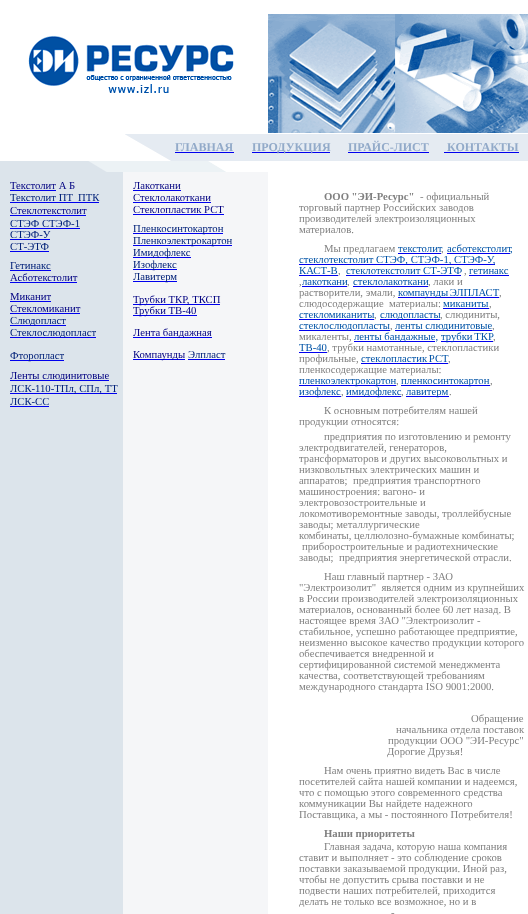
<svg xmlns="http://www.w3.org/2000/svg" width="528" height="914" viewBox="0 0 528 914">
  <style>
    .t1 { font: bold 12px Liberation Serif; fill: #92aac9; }
    .t2 { font: 10.7px Liberation Serif; fill: #000080; }
    .t3 { font: 10.7px Liberation Serif; fill: #002078; }
    .t4 { font: bold 10.7px Liberation Serif; fill: #808080; }
    .t5 { font: 10.7px Liberation Serif; fill: #808080; }
    .t6 { font: 10.7px Liberation Serif; fill: #0053a6; }
  </style>
  <rect width="100%" height="100%" fill="#fff"/>
  <image x="28" y="35" width="206" height="58" href="images/1.png"/>
  <image x="268" y="14" width="260" height="119" href="images/2.png"/>
  <image x="4" y="134" width="167" height="27" href="images/3.png"/>
  <rect x="171" y="134" width="357" height="27" fill="#e5ebf2"/>
  <text x="175" y="151" class="t1">ГЛАВНАЯ</text>
  <rect x="175" y="152" width="59" height="1" fill="#00e"/>
  <rect x="252" y="152" width="78" height="1" fill="#00e"/>
  <text x="252" y="151" class="t1">ПРОДУКЦИЯ</text>
  <text x="348" y="151" class="t1">ПРАЙС-ЛИСТ</text>
  <rect x="348" y="152" width="81" height="1" fill="#00e"/>
  <text x="447" y="151" class="t1">КОНТАКТЫ</text>
  <rect x="444" y="152" width="75" height="1" fill="#00e"/>
  <rect x="123" y="172" width="145" height="742" fill="#f5f6f8"/>
  <image x="0" y="161" width="268" height="11" href="images/4.png"/>
  <rect x="0" y="172" width="123" height="742" fill="#dce4eb"/>
  <text x="10" y="189" class="t2">Текстолит А Б</text>
  <rect x="10" y="190" width="46" height="1" fill="#00e"/>
  <text x="10" y="201" class="t3">Текстолит ПТ</text>
  <rect x="10" y="202" width="89" height="1" fill="#00e"/>
  <text x="78" y="201" class="t3">ПТК</text>
  <text x="10" y="214" class="t2">Стеклотекстолит</text>
  <rect x="10" y="215" width="76" height="1" fill="#00e"/>
  <text x="10" y="227" class="t3">СТЭФ СТЭФ-1</text>
  <rect x="10" y="228" width="70" height="1" fill="#00e"/>
  <text x="10" y="238" class="t3">СТЭФ-У</text>
  <rect x="10" y="239" width="40" height="1" fill="#00e"/>
  <text x="10" y="250" class="t3">СТ-ЭТФ</text>
  <rect x="10" y="251" width="39" height="1" fill="#00e"/>
  <text x="10" y="269" class="t3">Гетинакс</text>
  <rect x="10" y="270" width="41" height="1" fill="#00e"/>
  <text x="10" y="281" class="t2">Асботекстолит</text>
  <rect x="10" y="282" width="67" height="1" fill="#00e"/>
  <text x="10" y="300" class="t2">Миканит</text>
  <rect x="10" y="301" width="41" height="1" fill="#00e"/>
  <text x="10" y="312" class="t2">Стекломиканит</text>
  <rect x="10" y="313" width="70" height="1" fill="#00e"/>
  <rect x="10" y="325" width="56" height="1" fill="#00e"/>
  <text x="10" y="324" class="t3">Слюдопласт</text>
  <rect x="10" y="337" width="86" height="1" fill="#00e"/>
  <text x="10" y="336" class="t3">Стеклослюдопласт</text>
  <rect x="10" y="360" width="54" height="1" fill="#00e"/>
  <text x="10" y="359" class="t3">Фторопласт</text>
  <rect x="10" y="380" width="99" height="1" fill="#00e"/>
  <text x="10" y="379" class="t2">Ленты слюдинитовые</text>
  <rect x="10" y="393" width="107" height="1" fill="#00e"/>
  <text x="10" y="392" class="t3">ЛСК-110-ТПл, СПл, ТТ</text>
  <text x="10" y="405" class="t3">ЛСК-СС</text>
  <rect x="10" y="406" width="39" height="1" fill="#00e"/>
  <text x="133" y="189" class="t2">Лакоткани</text>
  <rect x="133" y="190" width="48" height="1" fill="#00e"/>
  <text x="133" y="201" class="t2">Стеклолакоткани</text>
  <rect x="133" y="202" width="78" height="1" fill="#00e"/>
  <text x="133" y="213" class="t2">Стеклопластик РСТ</text>
  <rect x="133" y="214" width="91" height="1" fill="#00e"/>
  <rect x="133" y="233" width="90" height="1" fill="#00e"/>
  <text x="133" y="232" class="t3">Пленкосинтокартон</text>
  <rect x="133" y="245" width="99" height="1" fill="#00e"/>
  <text x="133" y="244" class="t3">Пленкоэлектрокартон</text>
  <rect x="133" y="257" width="58" height="1" fill="#00e"/>
  <text x="133" y="256" class="t3">Имидофлекс</text>
  <rect x="133" y="269" width="44" height="1" fill="#00e"/>
  <text x="133" y="268" class="t3">Изофлекс</text>
  <rect x="133" y="281" width="44" height="1" fill="#00e"/>
  <text x="133" y="280" class="t3">Лавитерм</text>
  <rect x="133" y="304" width="87" height="1" fill="#00e"/>
  <text x="133" y="303" class="t2">Трубки ТКР, ТКСП</text>
  <rect x="133" y="315" width="64" height="1" fill="#00e"/>
  <text x="133" y="314" class="t2">Трубки ТВ-40</text>
  <rect x="133" y="337" width="79" height="1" fill="#00e"/>
  <text x="133" y="336" class="t2">Лента бандажная</text>
  <rect x="133" y="359" width="52" height="1" fill="#00e"/>
  <text x="133" y="358" class="t2">Компаунды</text>
  <rect x="188" y="359" width="37" height="1" fill="#00e"/>
  <text x="188" y="358" class="t3">Элпласт</text>
  <text x="324" y="200" class="t4">ООО "ЭИ-Ресурс"</text>
  <text x="420" y="200" class="t5">- официальный</text>
  <text x="299" y="211" class="t5">торговый партнер Российских заводов</text>
  <text x="299" y="222" class="t5">производителей электроизоляционных</text>
  <text x="299" y="233" class="t5">материалов.</text>
  <text x="324" y="252" class="t5">Мы предлагаем</text>
  <text x="398" y="252" class="t6">текстолит</text>
  <text x="447" y="252" class="t6">асботекстолит</text>
  <text x="441" y="252" class="t5">,</text>
  <rect x="398" y="253" width="43" height="1" fill="#00e"/>
  <text x="510" y="252" class="t6">,</text>
  <rect x="447" y="253" width="63" height="1" fill="#00e"/>
  <rect x="299" y="264" width="196" height="1" fill="#00e"/>
  <text x="299" y="263" class="t6">стеклотекстолит СТЭФ, СТЭФ-1, СТЭФ-У,</text>
  <text x="299" y="274" class="t6">КАСТ-В</text>
  <text x="338" y="274" class="t5">,</text>
  <rect x="299" y="275" width="39" height="1" fill="#00e"/>
  <text x="346" y="274" class="t6">стеклотекстолит СТ-ЭТФ</text>
  <text x="464" y="274" class="t5">,</text>
  <rect x="346" y="275" width="115" height="1" fill="#00e"/>
  <rect x="469" y="275" width="40" height="1" fill="#00e"/>
  <text x="469" y="274" class="t6">гетинакс</text>
  <text x="299" y="285" class="t5">,</text>
  <rect x="302" y="286" width="45" height="1" fill="#00e"/>
  <text x="302" y="285" class="t6">лакоткани</text>
  <text x="347" y="285" class="t5">,</text>
  <rect x="353" y="286" width="75" height="1" fill="#00e"/>
  <text x="353" y="285" class="t6">стеклолакоткани</text>
  <text x="428" y="285" class="t5">, лаки и</text>
  <text x="299" y="296" class="t5">растворители, эмали,</text>
  <rect x="398" y="297" width="101" height="1" fill="#00e"/>
  <text x="398" y="296" word-spacing="-1" class="t6">компаунды ЭЛПЛАСТ</text>
  <text x="499" y="296" class="t5">,</text>
  <text x="299" y="307" class="t5" xml:space="preserve">слюдосодержащие  материалы:</text>
  <text x="443" y="307" class="t6">миканиты</text>
  <text x="489" y="307" class="t5">,</text>
  <rect x="443" y="308" width="46" height="1" fill="#00e"/>
  <text x="299" y="318" class="t6">стекломиканиты</text>
  <text x="374" y="318" class="t5">,</text>
  <rect x="299" y="319" width="75" height="1" fill="#00e"/>
  <rect x="380" y="319" width="60" height="1" fill="#00e"/>
  <text x="380" y="318" class="t6">слюдопласты</text>
  <text x="440" y="318" class="t5">, слюдиниты,</text>
  <rect x="299" y="330" width="91" height="1" fill="#00e"/>
  <text x="299" y="329" class="t6">стеклослюдопласты</text>
  <text x="390" y="329" class="t5">,</text>
  <rect x="395" y="330" width="97" height="1" fill="#00e"/>
  <text x="395" y="329" class="t6">ленты слюдинитовые</text>
  <text x="492" y="329" class="t5">,</text>
  <text x="299" y="340" class="t5">микаленты,</text>
  <rect x="354" y="341" width="81" height="1" fill="#00e"/>
  <text x="354" y="340" class="t6">ленты бандажные,</text>
  <rect x="441" y="341" width="52" height="1" fill="#00e"/>
  <text x="441" y="340" word-spacing="-1" class="t6">трубки ТКР</text>
  <text x="493" y="340" class="t5">,</text>
  <text x="299" y="351" class="t6">ТВ-40</text>
  <text x="327" y="351" class="t5">, трубки намотанные, стеклопластики</text>
  <rect x="299" y="352" width="28" height="1" fill="#00e"/>
  <text x="299" y="362" class="t5">профильные,</text>
  <text x="361" y="362" word-spacing="-1" class="t6">стеклопластик РСТ</text>
  <text x="448" y="362" class="t5">,</text>
  <rect x="361" y="363" width="87" height="1" fill="#00e"/>
  <text x="299" y="373" class="t5">пленкосодержащие материалы:</text>
  <rect x="299" y="385" width="97" height="1" fill="#00e"/>
  <text x="299" y="384" class="t6">пленкоэлектрокартон</text>
  <text x="396" y="384" class="t5">,</text>
  <rect x="401" y="385" width="89" height="1" fill="#00e"/>
  <text x="401" y="384" class="t6">пленкосинтокартон</text>
  <text x="490" y="384" class="t5">,</text>
  <rect x="299" y="396" width="42" height="1" fill="#00e"/>
  <text x="299" y="395" class="t6">изофлекс</text>
  <text x="341" y="395" class="t5">,</text>
  <rect x="346" y="396" width="55" height="1" fill="#00e"/>
  <text x="346" y="395" class="t6">имидофлекс</text>
  <text x="401" y="395" class="t5">,</text>
  <rect x="406" y="396" width="43" height="1" fill="#00e"/>
  <text x="406" y="395" class="t6">лавитерм</text>
  <text x="449" y="395" class="t5">.</text>
  <text x="324" y="414" class="t5">К основным потребителям нашей</text>
  <text x="299" y="425" class="t5">продукции относятся:</text>
  <text x="324" y="440" class="t5">предприятия по изготовлению и ремонту</text>
  <text x="299" y="451" class="t5">электродвигателей, генераторов,</text>
  <text x="299" y="462" class="t5">трансформаторов и других высоковольтных и</text>
  <text x="299" y="473" class="t5">низковольтных электрических машин и</text>
  <text x="299" y="484" class="t5">аппаратов;</text>
  <text x="353" y="484" class="t5">предприятия транспортного</text>
  <text x="299" y="495" class="t5">машиностроения: вагоно- и</text>
  <text x="299" y="506" class="t5">электровозостроительные и</text>
  <text x="299" y="517" class="t5">локомотиворемонтные заводы, троллейбусные</text>
  <text x="299" y="528" class="t5">заводы; металлургические</text>
  <text x="299" y="539" class="t5">комбинаты, целлюлозно-бумажные комбинаты;</text>
  <text x="302" y="550" class="t5">приборостроительные и радиотехнические</text>
  <text x="299" y="561" class="t5">заводы;</text>
  <text x="339" y="561" class="t5">предприятия энергетической отрасли.</text>
  <text x="324" y="580" class="t5">Наш главный партнер - ЗАО</text>
  <text x="299" y="591" class="t5" xml:space="preserve">"Электроизолит"  является одним из крупнейших</text>
  <text x="299" y="602" class="t5">в России производителей электроизоляционных</text>
  <text x="299" y="613" class="t5">материалов, основанный более 60 лет назад. В</text>
  <text x="299" y="624" class="t5">настоящее время ЗАО "Электроизолит -</text>
  <text x="299" y="635" class="t5">стабильное, успешно работающее предприятие,</text>
  <text x="299" y="646" class="t5">неизменно высокое качество продукции которого</text>
  <text x="299" y="657" class="t5">обеспечивается внедренной и</text>
  <text x="299" y="668" class="t5">сертифицированной системой менеджмента</text>
  <text x="299" y="679" class="t5">качества, соответствующей требованиям</text>
  <text x="299" y="690" class="t5">международного стандарта ISO 9001:2000.</text>
  <text x="471" y="722" class="t5">Обращение</text>
  <text x="396" y="733" class="t5">начальника отдела поставок</text>
  <text x="388" y="744" class="t5">продукции ООО "ЭИ-Ресурс"</text>
  <text x="387" y="755" class="t5">Дорогие Друзья!</text>
  <text x="324" y="774" class="t5">Нам очень приятно видеть Вас в числе</text>
  <text x="299" y="785" class="t5">посетителей сайта нашей компании и надеемся,</text>
  <text x="299" y="796" class="t5">что с помощью этого современного средства</text>
  <text x="299" y="807" class="t5">коммуникации Вы найдете надежного</text>
  <text x="299" y="818" class="t5">Поставщика, а мы - постоянного Потребителя!</text>
  <text x="324" y="837" class="t4">Наши приоритеты</text>
  <text x="324" y="850" class="t5">Главная задача, которую наша компания</text>
  <text x="299" y="861" class="t5">ставит и выполняет - это соблюдение сроков</text>
  <text x="299" y="872" class="t5">поставки заказываемой продукции. Иной раз,</text>
  <text x="299" y="883" class="t5">чтобы не допустить срыва поставки и не</text>
  <text x="299" y="894" class="t5">подвести наших потребителей, приходится</text>
  <text x="299" y="905" class="t5">делать не только все возможное, но и в</text>
  <text x="391" y="916" class="t5">-</text>
</svg>
